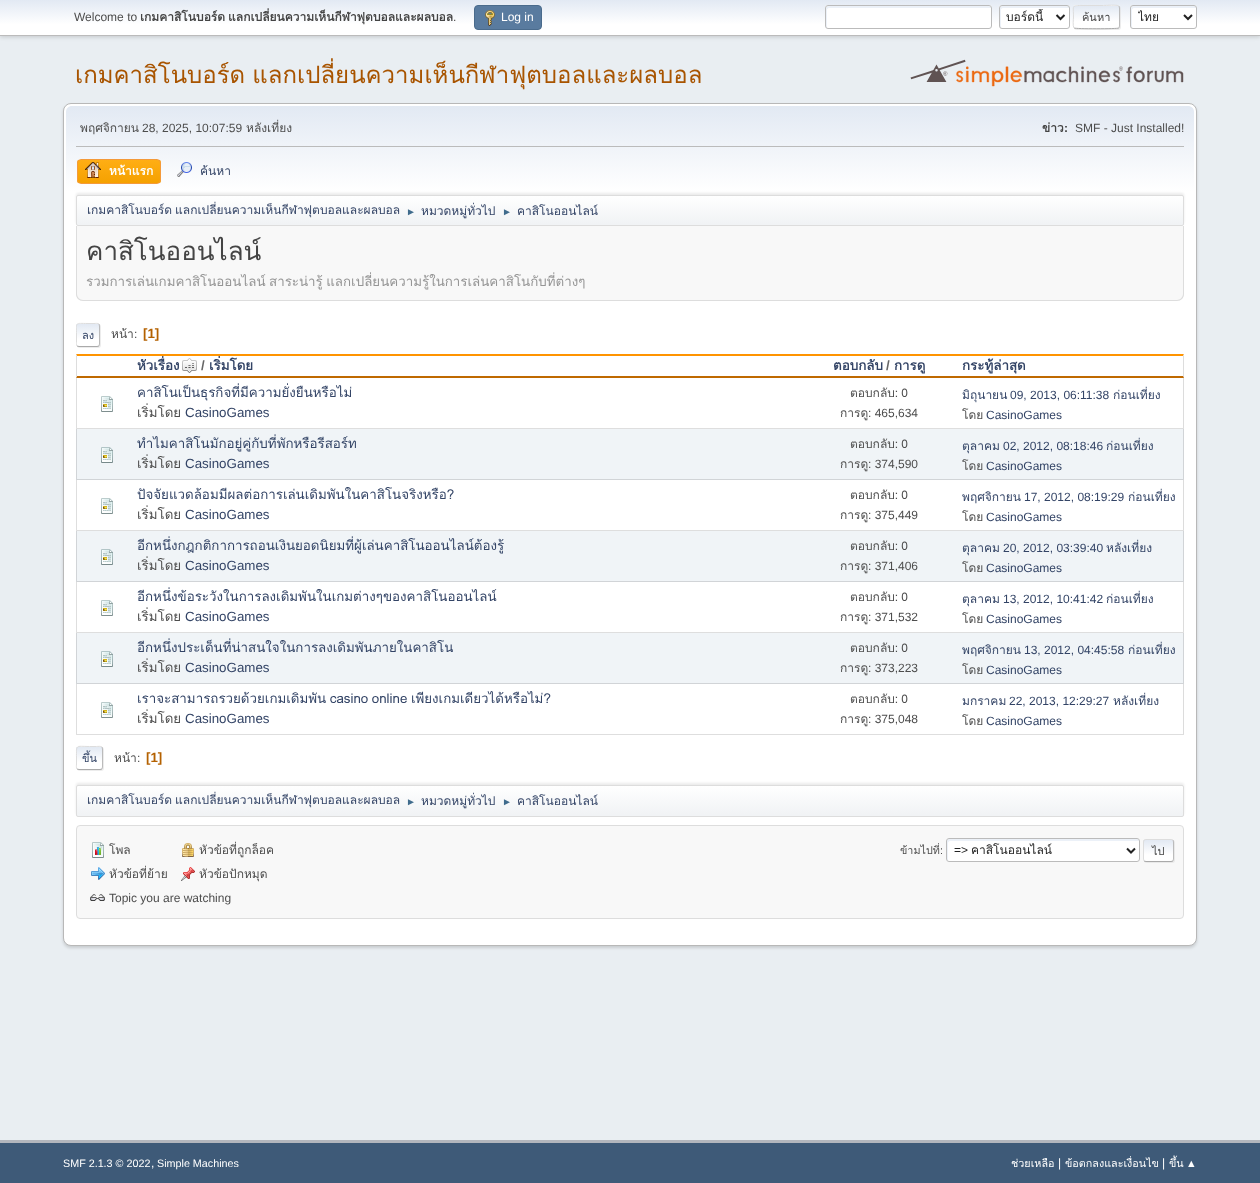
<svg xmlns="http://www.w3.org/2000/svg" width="1260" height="1183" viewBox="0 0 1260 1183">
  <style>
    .t1 { font: 12px Liberation Sans; fill: #4d4d4d; }
    .t2 { font: bold 12px Loma; fill: #444; }
    .t3 { font: 12px Liberation Sans; fill: #fff; }
    .t4 { font: 12px Loma; fill: #222; }
    .t5 { font: 11px Loma; fill: #444; }
    .t6 { font: 24px Loma; fill: #a85400; }
    .t7 { font: 12px Loma; fill: #4d4d4d; }
    .t8 { font: bold 12px Liberation Sans; fill: #444; }
    .t9 { font: bold 12px Loma; fill: #fff; }
    .t10 { font: 12px Loma; fill: #346; }
    .t11 { font: 10px Liberation Sans; fill: #3f6b8c; }
    .t12 { font: 26px Loma; fill: #444; }
    .t13 { font: 13.35px Loma; fill: #959595; }
    .t14 { font: 11px Loma; fill: #346; }
    .t15 { font: bold 13.35px Liberation Sans; fill: #b46100; }
    .t16 { font: bold 13.35px Loma; fill: #346; }
    .t17 { font: bold 13.35px Liberation Sans; fill: #666; }
    .t18 { font: 13.35px Loma; fill: #346; }
    .t19 { font: 13.35px Loma; fill: #4d4d4d; }
    .t20 { font: 13.35px Liberation Sans; fill: #346; }
    .t21 { font: 12px Liberation Sans; fill: #346; }
    .t22 { font: 10.75px Loma; fill: #4d4d4d; }
    .t23 { font: 10.75px Liberation Sans; fill: #4d4d4d; }
    .t24 { font: 12px Liberation Sans; fill: #222; }
    .t25 { font: 10.75px Liberation Sans; fill: #fff; }
    .t26 { font: 10.75px Loma; fill: #fff; }
  </style>
  <defs>
    <linearGradient id="g1" gradientUnits="userSpaceOnUse" x1="630" y1="0" x2="630" y2="35"><stop offset="0" stop-color="#e2e9f3"/><stop offset="0.7" stop-color="#fff"/></linearGradient>
    <clipPath id="clip1"><rect x="1006" y="9" width="44" height="16"/></clipPath>
    <clipPath id="clip2"><rect x="1073" y="5" width="47" height="24" rx="3"/></clipPath>
    <linearGradient id="g2" gradientUnits="userSpaceOnUse" x1="1097" y1="-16" x2="1097" y2="6"><stop offset="0" stop-color="#e2e9f3"/><stop offset="0.7" stop-color="#fff"/></linearGradient>
    <linearGradient id="g3" gradientUnits="userSpaceOnUse" x1="1097" y1="6" x2="1097" y2="28"><stop offset="0" stop-color="#e2e9f3"/><stop offset="0.7" stop-color="#fff"/></linearGradient>
    <clipPath id="clip3"><rect x="1138" y="9" width="40" height="16"/></clipPath>
    <linearGradient id="g4" gradientUnits="userSpaceOnUse" x1="630" y1="106" x2="630" y2="228"><stop offset="0" stop-color="#e2e9f3"/><stop offset="0.7" stop-color="#fff"/></linearGradient>
    <clipPath id="clip4"><rect x="77" y="159" width="84" height="25" rx="4"/></clipPath>
    <linearGradient id="g5" gradientUnits="userSpaceOnUse" x1="119" y1="160" x2="119" y2="183"><stop offset="0" stop-color="#ffae14"/><stop offset="1" stop-color="#f5a100"/></linearGradient>
    <clipPath id="clip5"><rect x="76" y="195" width="1108" height="31" rx="2"/></clipPath>
    <linearGradient id="g6" gradientUnits="userSpaceOnUse" x1="630" y1="196" x2="630" y2="225"><stop offset="0" stop-color="#fff"/><stop offset="0.95" stop-color="#f1f3f5"/></linearGradient>
    <clipPath id="clip6"><rect x="76" y="323" width="24" height="24" rx="3"/></clipPath>
    <linearGradient id="g7" gradientUnits="userSpaceOnUse" x1="88" y1="324" x2="88" y2="346"><stop offset="0" stop-color="#e2e9f3"/><stop offset="0.7" stop-color="#fff"/></linearGradient>
    <clipPath id="clip7"><rect x="76" y="316" width="1108" height="38"/></clipPath>
    <clipPath id="clip8"><rect x="137" y="356" width="659" height="20"/></clipPath>
    <clipPath id="clip9"><rect x="137" y="378" width="659" height="50"/></clipPath>
    <clipPath id="clip10"><rect x="137" y="429" width="659" height="50"/></clipPath>
    <clipPath id="clip11"><rect x="137" y="480" width="659" height="50"/></clipPath>
    <clipPath id="clip12"><rect x="137" y="531" width="659" height="50"/></clipPath>
    <clipPath id="clip13"><rect x="137" y="582" width="659" height="50"/></clipPath>
    <clipPath id="clip14"><rect x="137" y="633" width="659" height="50"/></clipPath>
    <clipPath id="clip15"><rect x="137" y="684" width="659" height="50"/></clipPath>
    <clipPath id="clip16"><rect x="76" y="746" width="27" height="24" rx="3"/></clipPath>
    <linearGradient id="g8" gradientUnits="userSpaceOnUse" x1="90" y1="747" x2="90" y2="769"><stop offset="0" stop-color="#e2e9f3"/><stop offset="0.7" stop-color="#fff"/></linearGradient>
    <clipPath id="clip17"><rect x="76" y="785" width="1108" height="32" rx="2"/></clipPath>
    <linearGradient id="g9" gradientUnits="userSpaceOnUse" x1="630" y1="786" x2="630" y2="816"><stop offset="0" stop-color="#fff"/><stop offset="0.95" stop-color="#f1f3f5"/></linearGradient>
    <clipPath id="clip18"><rect x="1143" y="839" width="31" height="23" rx="3"/></clipPath>
    <linearGradient id="g10" gradientUnits="userSpaceOnUse" x1="1159" y1="840" x2="1159" y2="861"><stop offset="0" stop-color="#e2e9f3"/><stop offset="0.7" stop-color="#fff"/></linearGradient>
  </defs>
  <rect width="100%" height="100%" fill="#e9eef2"/>
  <rect x="0" y="1" width="1260" height="36" fill="#00000029" filter="blur(2px)"/>
  <rect x="0" y="0" width="1260" height="35" fill="url(#g1)"/>
  <rect x="0" y="35" width="1260" height="1" fill="#bbb"/>
  <text x="74" y="21" class="t1">Welcome to</text>
  <text x="140" y="21" word-spacing="-1" class="t2">เกมคาสิโนบอร์ด แลกเปลี่ยนความเห็นกีฬาฟุตบอลและผลบอล</text>
  <text x="453" y="21" class="t1">.</text>
  <rect x="474.5" y="5.5" width="67" height="24" rx="3.5" fill="#597b9f" stroke="#4a6b8c"/>
  <image x="485" y="10" width="10" height="16" href="images/1.png"/>
  <text x="501" y="21" class="t3">Log in</text>
  <rect x="825" y="5" width="167" height="24" rx="3" fill="#fff"/>
  <path d="M829 8H991V7L989 6H828C827 6 826 7 826 8C826 11 825 27 827 28V10C827 9 828 8 829 8Z" fill="#ecf1f8"/>
  <rect x="825.5" y="5.5" width="166" height="23" rx="2.5" fill="none" stroke="#bbb"/>
  <rect x="999" y="5" width="71" height="24" rx="3" fill="#fff"/>
  <path d="M1003 8H1069V7C1067 4 1056 6 1056 6H1013C996 6 1000 4 1000 20C1000 22 999 26 1001 28V10C1001 9 1002 8 1003 8Z" fill="#ecf1f8"/>
  <rect x="999.5" y="5.5" width="70" height="23" rx="2.5" fill="none" stroke="#bbb"/>
  <path d="M1056.5 15L1060.5 19L1064.5 15" fill="none" stroke="#222" stroke-width="2"/>
  <g clip-path="url(#clip1)">
    <text x="1006" y="21" class="t4">บอร์ดนี้</text>
  </g>
  <rect x="1074" y="6" width="47" height="24" rx="3" fill="#dddddd91" filter="blur(0.5px)"/>
  <g clip-path="url(#clip2)">
    <rect x="1073" y="5" width="47" height="1" fill="url(#g2)"/>
    <rect x="1073" y="6" width="47" height="22" fill="url(#g3)"/>
  </g>
  <path d="M1119 6C1119 6.5 1119.5 7.5 1119.5 8V26C1119.5 26.5 1119 27.5 1119 28" fill="none" stroke="#bbb"/>
  <path d="M1119 28C1117.5 29 1075.5 29 1074 28" fill="none" stroke="#aaa"/>
  <path d="M1074 28C1072.5 26 1073.5 19 1073.5 17C1073.5 5 1071 5.5 1083 5.5H1103.5C1106 5.5 1117 4.5 1119 6" fill="none" stroke="#ddd"/>
  <text x="1082" y="21" class="t5">ค้นหา</text>
  <rect x="1130" y="5" width="67" height="24" rx="3" fill="#fff"/>
  <path d="M1134 8H1196C1196 7 1196 7 1195 6H1143C1134 6 1131 3 1131 11C1131 14 1130 26 1132 28V10C1132 9 1133 8 1134 8Z" fill="#ecf1f8"/>
  <rect x="1130.5" y="5.5" width="66" height="23" rx="2.5" fill="none" stroke="#bbb"/>
  <path d="M1184 15L1188 19L1192 15" fill="none" stroke="#222" stroke-width="2"/>
  <g clip-path="url(#clip3)">
    <text x="1138" y="21" class="t4">ไทย</text>
  </g>
  <text x="75" y="83" word-spacing="-1" class="t6">เกมคาสิโนบอร์ด แลกเปลี่ยนความเห็นกีฬาฟุตบอลและผลบอล</text>
  <image x="910" y="59" width="274" height="28" href="images/2.png"/>
  <rect x="63" y="105" width="1134" height="843" rx="8" fill="#00000024" filter="blur(1.5px)"/>
  <rect x="63.5" y="103.5" width="1133" height="842" rx="7.5" fill="#fff" stroke="#b8b8b8"/>
  <path d="M72 106H1188C1191.5 106 1194 108.5 1194 112V228H66V112C66 108.5 68.5 106 72 106Z" fill="url(#g4)"/>
  <rect x="76" y="146" width="1108" height="1" fill="#bbb"/>
  <text x="80" y="132" class="t7">พฤศจิกายน</text>
  <text x="142" y="132" class="t1">28, 2025, 10:07:59</text>
  <text x="246" y="132" class="t7">หลังเที่ยง</text>
  <text x="1042" y="132" class="t2">ข่าว</text>
  <text x="1064" y="132" class="t8">:</text>
  <text x="1075" y="132" class="t1">SMF - Just Installed!</text>
  <g clip-path="url(#clip4)">
    <rect x="77" y="160" width="84" height="23" fill="url(#g5)"/>
  </g>
  <rect x="77.5" y="159.5" width="83" height="24" rx="3.5" fill="none" stroke="#f49a3a"/>
  <image x="85" y="162" width="16" height="16" href="images/3.png"/>
  <text x="109" y="175" class="t9">หน้าแรก</text>
  <image x="177" y="162" width="15" height="15" href="images/4.png"/>
  <text x="200" y="175" class="t10">ค้นหา</text>
  <rect x="76" y="193" width="1108" height="31" rx="2" fill="#00000014" filter="blur(1px)"/>
  <g clip-path="url(#clip5)">
    <rect x="76" y="196" width="1108" height="29" fill="url(#g6)"/>
  </g>
  <rect x="76.5" y="195.5" width="1107" height="30" rx="1.5" fill="none" stroke="#ddd"/>
  <text x="87" y="214" word-spacing="-1" class="t10">เกมคาสิโนบอร์ด แลกเปลี่ยนความเห็นกีฬาฟุตบอลและผลบอล</text>
  <text x="406" y="215" class="t11">►</text>
  <text x="421" y="215" class="t10">หมวดหมู่ทั่วไป</text>
  <text x="502" y="215" class="t11">►</text>
  <text x="517" y="215" class="t10">คาสิโนออนไลน์</text>
  <path d="M76 226H1184V294C1184 298 1181 301 1177 301H83C79 301 76 298 76 294Z" fill="#f8f8f8"/>
  <path d="M76 226H1184V294C1184 298 1181 301 1177 301H83C79 301 76 298 76 294ZM77 226H1183V294C1183 297 1180 300 1177 300H83C80 300 77 297 77 294Z" fill="#ddd" fill-rule="evenodd"/>
  <text x="86" y="260" class="t12">คาสิโนออนไลน์</text>
  <text x="86" y="286" word-spacing="-1" class="t13">รวมการเล่นเกมคาสิโนออนไลน์ สาระน่ารู้ แลกเปลี่ยนความรู้ในการเล่นคาสิโนกับที่ต่างๆ</text>
  <rect x="77" y="324" width="24" height="24" rx="3" fill="#dddddd91" filter="blur(0.5px)"/>
  <g clip-path="url(#clip6)">
    <rect x="76" y="324" width="24" height="22" fill="url(#g7)"/>
  </g>
  <path d="M99 324C99 324.5 99.5 325.5 99.5 326V344C99.5 344.5 99 345.5 99 346" fill="none" stroke="#bbb"/>
  <path d="M99 346C98.5 346 97.5 346.5 97 346.5H79C78.5 346.5 77.5 346 77 346" fill="none" stroke="#aaa"/>
  <g clip-path="url(#clip7)">
    <path d="M77 346C76 344.5 76.5 342.5 76.5 341V335C76.5 321.5 74.5 323.5 88 323.5H94C95.5 323.5 97.5 323 99 324" fill="none" stroke="#ddd"/>
  </g>
  <text x="82" y="339" class="t14">ลง</text>
  <text x="111" y="338" class="t7">หน้า</text>
  <text x="134" y="338" class="t1">:</text>
  <text x="143" y="338" class="t15">[1]</text>
  <path d="M76 354H1184L1183 356H77Z" fill="#ff9400"/>
  <path d="M1184 354V378L1183 376V356Z" fill="#ddd"/>
  <path d="M1184 378H76L77 376H1183Z" fill="#bf6900"/>
  <path d="M76 378V354L77 356V376Z" fill="#ddd"/>
  <g clip-path="url(#clip8)">
    <text x="137" y="370" class="t16">หัวเรื่อง</text>
  </g>
  <image x="182" y="358" width="15" height="15" href="images/5.png"/>
  <text x="201" y="370" class="t17">/</text>
  <text x="209" y="370" class="t16">เริ่มโดย</text>
  <text x="833" y="370" class="t16">ตอบกลับ</text>
  <text x="886" y="370" class="t17">/</text>
  <text x="894" y="370" class="t16">การดู</text>
  <text x="962" y="370" class="t16">กระทู้ล่าสุด</text>
  <path d="M1184 378V429L1183 428V378Z" fill="#dcdcdc"/>
  <path d="M1184 429H76L77 428H1183Z" fill="#00000021"/>
  <path d="M76 429V378H77V428Z" fill="#00000021"/>
  <image x="101" y="396" width="12" height="16" href="images/6.png"/>
  <text x="137" y="397" class="t18">คาสิโนเป็นธุรกิจที่มีความยั่งยืนหรือไม่</text>
  <g clip-path="url(#clip9)">
    <text x="137" y="417" class="t19">เริ่มโดย</text>
  </g>
  <text x="185" y="417" class="t20">CasinoGames</text>
  <text x="850" y="397" word-spacing="-1" class="t7">ตอบกลับ: 0</text>
  <text x="840" y="417" class="t7">การดู</text>
  <text x="868" y="417" class="t1">: 465,634</text>
  <text x="962" y="399" class="t10">มิถุนายน</text>
  <text x="1010" y="399" class="t21">09, 2013, 06:11:38</text>
  <text x="1113" y="399" class="t10">ก่อนเที่ยง</text>
  <text x="962" y="419" class="t7">โดย</text>
  <text x="986" y="419" class="t21">CasinoGames</text>
  <rect x="76" y="429" width="1108" height="51" fill="#f0f4f7"/>
  <path d="M1184 429V480L1183 479V429Z" fill="#d1d4d7"/>
  <path d="M1184 480H76L77 479H1183Z" fill="#00000021"/>
  <path d="M76 480V429H77V479Z" fill="#00000021"/>
  <image x="101" y="447" width="12" height="16" href="images/7.png"/>
  <g clip-path="url(#clip10)">
    <text x="137" y="448" class="t18">ทำไมคาสิโนมักอยู่คู่กับที่พักหรือรีสอร์ท</text>
    <text x="137" y="468" class="t19">เริ่มโดย</text>
  </g>
  <text x="185" y="468" class="t20">CasinoGames</text>
  <text x="850" y="448" word-spacing="-1" class="t7">ตอบกลับ: 0</text>
  <text x="840" y="468" class="t7">การดู</text>
  <text x="868" y="468" class="t1">: 374,590</text>
  <text x="962" y="450" class="t10">ตุลาคม</text>
  <text x="1003" y="450" class="t21">02, 2012, 08:18:46</text>
  <text x="1106" y="450" class="t10">ก่อนเที่ยง</text>
  <text x="962" y="470" class="t7">โดย</text>
  <text x="986" y="470" class="t21">CasinoGames</text>
  <path d="M1184 480V531L1183 530V480Z" fill="#dcdcdc"/>
  <path d="M1184 531H76L77 530H1183Z" fill="#00000021"/>
  <path d="M76 531V480H77V530Z" fill="#00000021"/>
  <image x="101" y="498" width="12" height="16" href="images/6.png"/>
  <g clip-path="url(#clip11)">
    <text x="137" y="499" class="t18">ปัจจัยแวดล้อมมีผลต่อการเล่นเดิมพันในคาสิโนจริงหรือ?</text>
    <text x="137" y="519" class="t19">เริ่มโดย</text>
  </g>
  <text x="185" y="519" class="t20">CasinoGames</text>
  <text x="850" y="499" word-spacing="-1" class="t7">ตอบกลับ: 0</text>
  <text x="840" y="519" class="t7">การดู</text>
  <text x="868" y="519" class="t1">: 375,449</text>
  <text x="962" y="501" class="t10">พฤศจิกายน</text>
  <text x="1024" y="501" class="t21">17, 2012, 08:19:29</text>
  <text x="1128" y="501" class="t10">ก่อนเที่ยง</text>
  <text x="962" y="521" class="t7">โดย</text>
  <text x="986" y="521" class="t21">CasinoGames</text>
  <rect x="76" y="531" width="1108" height="51" fill="#f0f4f7"/>
  <path d="M1184 531V582L1183 581V531Z" fill="#d1d4d7"/>
  <path d="M1184 582H76L77 581H1183Z" fill="#00000021"/>
  <path d="M76 582V531H77V581Z" fill="#00000021"/>
  <image x="101" y="549" width="12" height="16" href="images/7.png"/>
  <g clip-path="url(#clip12)">
    <text x="137" y="550" class="t18">อีกหนึ่งกฎกติกาการถอนเงินยอดนิยมที่ผู้เล่นคาสิโนออนไลน์ต้องรู้</text>
    <text x="137" y="570" class="t19">เริ่มโดย</text>
  </g>
  <text x="185" y="570" class="t20">CasinoGames</text>
  <text x="850" y="550" word-spacing="-1" class="t7">ตอบกลับ: 0</text>
  <text x="840" y="570" class="t7">การดู</text>
  <text x="868" y="570" class="t1">: 371,406</text>
  <text x="962" y="552" class="t10">ตุลาคม</text>
  <text x="1003" y="552" class="t21">20, 2012, 03:39:40</text>
  <text x="1106" y="552" class="t10">หลังเที่ยง</text>
  <text x="962" y="572" class="t7">โดย</text>
  <text x="986" y="572" class="t21">CasinoGames</text>
  <path d="M1184 582V633L1183 632V582Z" fill="#dcdcdc"/>
  <path d="M1184 633H76L77 632H1183Z" fill="#00000021"/>
  <path d="M76 633V582H77V632Z" fill="#00000021"/>
  <image x="101" y="600" width="12" height="16" href="images/6.png"/>
  <g clip-path="url(#clip13)">
    <text x="137" y="601" class="t18">อีกหนึ่งข้อระวังในการลงเดิมพันในเกมต่างๆของคาสิโนออนไลน์</text>
    <text x="137" y="621" class="t19">เริ่มโดย</text>
  </g>
  <text x="185" y="621" class="t20">CasinoGames</text>
  <text x="850" y="601" word-spacing="-1" class="t7">ตอบกลับ: 0</text>
  <text x="840" y="621" class="t7">การดู</text>
  <text x="868" y="621" class="t1">: 371,532</text>
  <text x="962" y="603" class="t10">ตุลาคม</text>
  <text x="1003" y="603" class="t21">13, 2012, 10:41:42</text>
  <text x="1106" y="603" class="t10">ก่อนเที่ยง</text>
  <text x="962" y="623" class="t7">โดย</text>
  <text x="986" y="623" class="t21">CasinoGames</text>
  <rect x="76" y="633" width="1108" height="51" fill="#f0f4f7"/>
  <path d="M1184 633V684L1183 683V633Z" fill="#d1d4d7"/>
  <path d="M1184 684H76L77 683H1183Z" fill="#00000021"/>
  <path d="M76 684V633H77V683Z" fill="#00000021"/>
  <image x="101" y="651" width="12" height="16" href="images/7.png"/>
  <g clip-path="url(#clip14)">
    <text x="137" y="652" class="t18">อีกหนึ่งประเด็นที่น่าสนใจในการลงเดิมพันภายในคาสิโน</text>
    <text x="137" y="672" class="t19">เริ่มโดย</text>
  </g>
  <text x="185" y="672" class="t20">CasinoGames</text>
  <text x="850" y="652" word-spacing="-1" class="t7">ตอบกลับ: 0</text>
  <text x="840" y="672" class="t7">การดู</text>
  <text x="868" y="672" class="t1">: 373,223</text>
  <text x="962" y="654" class="t10">พฤศจิกายน</text>
  <text x="1024" y="654" class="t21">13, 2012, 04:45:58</text>
  <text x="1128" y="654" class="t10">ก่อนเที่ยง</text>
  <text x="962" y="674" class="t7">โดย</text>
  <text x="986" y="674" class="t21">CasinoGames</text>
  <path d="M1184 684V735L1183 734V684Z" fill="#dcdcdc"/>
  <path d="M1184 735H76L77 734H1183Z" fill="#00000021"/>
  <path d="M76 735V684H77V734Z" fill="#00000021"/>
  <image x="101" y="702" width="12" height="16" href="images/6.png"/>
  <text x="137" y="703" word-spacing="-1" class="t18">เราจะสามารถรวยด้วยเกมเดิมพัน casino online เพียงเกมเดียวได้หรือไม่?</text>
  <g clip-path="url(#clip15)">
    <text x="137" y="723" class="t19">เริ่มโดย</text>
  </g>
  <text x="185" y="723" class="t20">CasinoGames</text>
  <text x="850" y="703" word-spacing="-1" class="t7">ตอบกลับ: 0</text>
  <text x="840" y="723" class="t7">การดู</text>
  <text x="868" y="723" class="t1">: 375,048</text>
  <text x="962" y="705" class="t10">มกราคม</text>
  <text x="1009" y="705" class="t21">22, 2013, 12:29:27</text>
  <text x="1113" y="705" class="t10">หลังเที่ยง</text>
  <text x="962" y="725" class="t7">โดย</text>
  <text x="986" y="725" class="t21">CasinoGames</text>
  <rect x="77" y="747" width="27" height="24" rx="3" fill="#dddddd91" filter="blur(0.5px)"/>
  <g clip-path="url(#clip16)">
    <rect x="76" y="747" width="27" height="22" fill="url(#g8)"/>
  </g>
  <path d="M102 747C102 747.5 102.5 748.5 102.5 749V767C102.5 767.5 102 768.5 102 769" fill="none" stroke="#bbb"/>
  <path d="M102 769C101.5 769 100.5 769.5 100 769.5H79C78.5 769.5 77.5 769 77 769" fill="none" stroke="#aaa"/>
  <path d="M77 769C76 767.5 76.5 765.5 76.5 764V758C76.5 744 75 746.5 89.5 746.5H96.5C98 746.5 100.5 746 102 747" fill="none" stroke="#ddd"/>
  <text x="82" y="762" class="t14">ขึ้น</text>
  <text x="114" y="762" class="t7">หน้า</text>
  <text x="137" y="762" class="t1">:</text>
  <text x="146" y="762" class="t15">[1]</text>
  <rect x="76" y="783" width="1108" height="32" rx="2" fill="#00000014" filter="blur(1px)"/>
  <g clip-path="url(#clip17)">
    <rect x="76" y="786" width="1108" height="30" fill="url(#g9)"/>
  </g>
  <rect x="76.5" y="785.5" width="1107" height="31" rx="1.5" fill="none" stroke="#ddd"/>
  <text x="87" y="804" word-spacing="-1" class="t10">เกมคาสิโนบอร์ด แลกเปลี่ยนความเห็นกีฬาฟุตบอลและผลบอล</text>
  <text x="406" y="805" class="t11">►</text>
  <text x="421" y="805" class="t10">หมวดหมู่ทั่วไป</text>
  <text x="502" y="805" class="t11">►</text>
  <text x="517" y="805" class="t10">คาสิโนออนไลน์</text>
  <rect x="76.5" y="825.5" width="1107" height="93" rx="3.5" fill="#f8f8f8" stroke="#ddd"/>
  <image x="182" y="843" width="12" height="14" href="images/8.png"/>
  <text x="199" y="854" class="t7">หัวข้อที่ถูกล็อค</text>
  <image x="181" y="867" width="14" height="14" href="images/9.png"/>
  <text x="199" y="878" class="t7">หัวข้อปักหมุด</text>
  <image x="90" y="894" width="15" height="7" href="images/10.png"/>
  <text x="109" y="902" class="t1">Topic you are watching</text>
  <text x="900" y="854" class="t22">ข้ามไปที่</text>
  <text x="940" y="854" class="t23">:</text>
  <rect x="946" y="838" width="194" height="24" rx="3" fill="#fff"/>
  <path d="M950 841H1139C1139 840 1138 839 1137 839H949C948 839 947 840 947 841V859C947 860 947 860 948 861V843C948 842 949 841 950 841Z" fill="#ecf1f8"/>
  <rect x="946.5" y="838.5" width="193" height="23" rx="2.5" fill="none" stroke="#bbb"/>
  <path d="M1127 848.5L1131 852.5L1135 848.5" fill="none" stroke="#222" stroke-width="2"/>
  <text x="954" y="854" class="t24">=&gt;</text>
  <text x="971" y="854" class="t4">คาสิโนออนไลน์</text>
  <rect x="1144" y="840" width="31" height="23" rx="3" fill="#dddddd91" filter="blur(0.5px)"/>
  <g clip-path="url(#clip18)">
    <rect x="1143" y="840" width="31" height="21" fill="url(#g10)"/>
  </g>
  <path d="M1173 840C1173 840.5 1173.5 841.5 1173.5 842V859C1173.5 859.5 1173 860.5 1173 861" fill="none" stroke="#bbb"/>
  <path d="M1173 861C1172.5 861 1171.5 861.5 1171 861.5H1146C1145.5 861.5 1144.5 861 1144 861" fill="none" stroke="#aaa"/>
  <path d="M1144 861C1144 860.5 1143.5 859.5 1143.5 859V842C1143.5 841.5 1144 840.5 1144 840C1144.5 840 1145.5 839.5 1146 839.5H1171C1171.5 839.5 1172.5 840 1173 840" fill="none" stroke="#ddd"/>
  <text x="1152" y="855" class="t5">ไป</text>
  <image x="92" y="842" width="12" height="16" href="images/11.png"/>
  <text x="109" y="854" class="t7">โพล</text>
  <image x="91" y="867" width="14" height="13" href="images/12.png"/>
  <text x="109" y="878" class="t7">หัวข้อที่ย้าย</text>
  <rect x="0" y="1143" width="1260" height="40" fill="#3e5a78"/>
  <rect x="0" y="1140" width="1260" height="3" fill="#b2b6bd"/>
  <text x="63" y="1167" class="t25">SMF 2.1.3 © 2022</text>
  <text x="151" y="1167" class="t3">,</text>
  <text x="157" y="1167" class="t25">Simple Machines</text>
  <text x="1011" y="1167" class="t26">ช่วยเหลือ</text>
  <text x="1058" y="1167" class="t3">|</text>
  <text x="1065" y="1167" class="t26">ข้อตกลงและเงื่อนไข</text>
  <text x="1162" y="1167" class="t3">|</text>
  <text x="1169" y="1167" class="t26">ขึ้น</text>
  <text x="1186" y="1167" class="t25">▲</text>
</svg>
